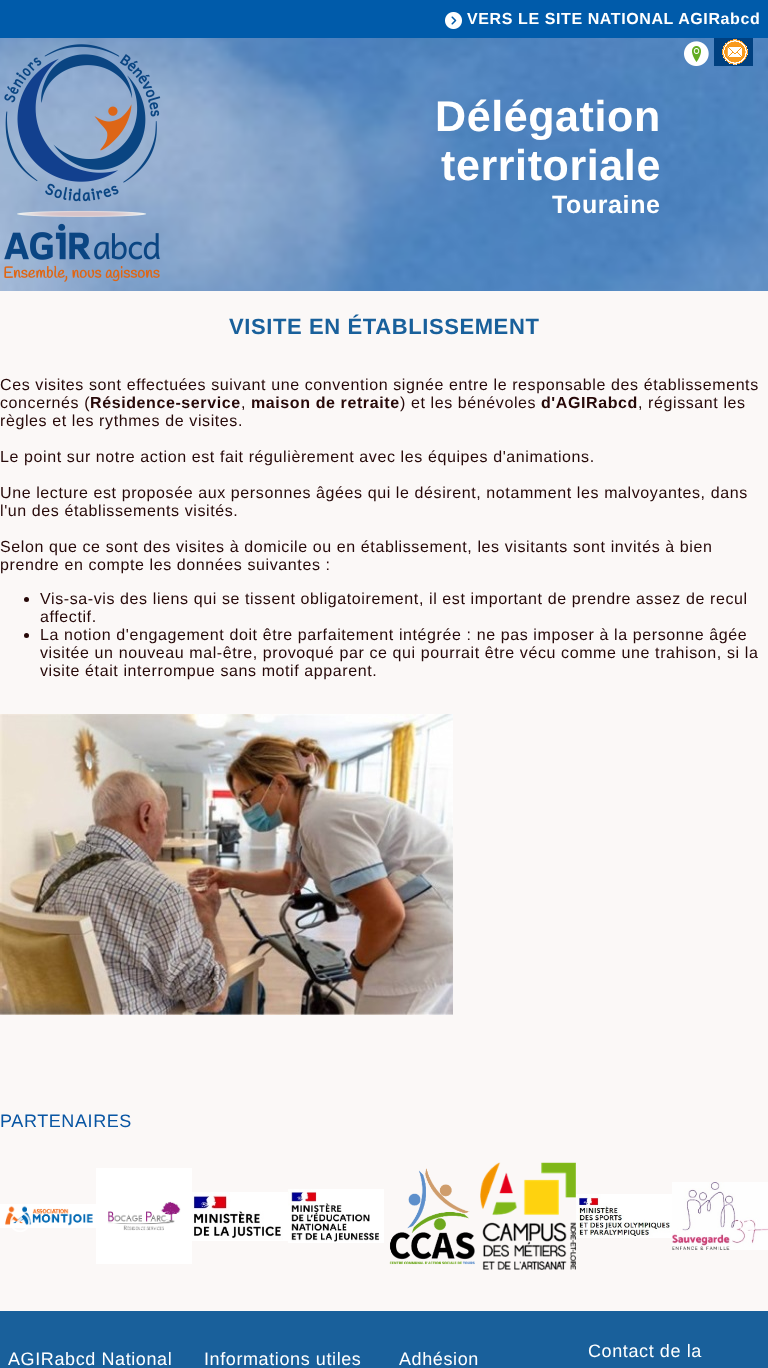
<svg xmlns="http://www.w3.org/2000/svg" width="768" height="1368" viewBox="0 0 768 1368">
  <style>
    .t1 { font: bold 16px Liberation Sans; letter-spacing: 0.6px; fill: #fff; }
    .t2 { font: bold 43px Liberation Sans; letter-spacing: 0.6px; fill: #fff; }
    .t3 { font: bold 25px Liberation Sans; letter-spacing: 0.6px; fill: #fff; }
    .t4 { font: bold 22px Liberation Sans; letter-spacing: 0.6px; fill: #19609b; }
    .t5 { font: 16px Liberation Sans; letter-spacing: 0.6px; fill: #260808; }
    .t6 { font: bold 16px Liberation Sans; letter-spacing: 0.6px; fill: #260808; }
    .t7 { font: 18px Liberation Sans; letter-spacing: 0.6px; fill: #0855a3; }
    .t8 { font: 18px Liberation Sans; letter-spacing: 0.6px; fill: #fff; }
  </style>
  <rect width="100%" height="100%" fill="#fbf8f7"/>
  <rect x="0" y="0" width="768" height="38" fill="#005baa"/>
  <image x="445" y="12" width="17" height="17" href="images/1.png"/>
  <text x="467" y="24" class="t1">VERS LE SITE NATIONAL AGIRabcd</text>
  <image x="0" y="38" width="768" height="253" href="images/2.png"/>
  <image x="4" y="44" width="157" height="238" href="images/3.png"/>
  <image x="684" y="41" width="25" height="25" href="images/4.png"/>
  <image x="714" y="38" width="39" height="28" href="images/5.png"/>
  <text x="435" y="131" class="t2">Délégation</text>
  <text x="441" y="180" class="t2">territoriale</text>
  <text x="552" y="213" class="t3">Touraine</text>
  <text x="229" y="334" class="t4">VISITE EN ÉTABLISSEMENT</text>
  <text x="0" y="390" class="t5">Ces visites sont effectuées suivant une convention signée entre le responsable des établissements</text>
  <text x="0" y="408" class="t5">concernés (</text>
  <text x="90" y="408" class="t6">Résidence-service</text>
  <text x="241" y="408" class="t5">,</text>
  <text x="251" y="408" class="t6">maison de retraite</text>
  <text x="400" y="408" class="t5">) et les bénévoles</text>
  <text x="541" y="408" class="t6">d'AGIRabcd</text>
  <text x="638" y="408" class="t5">, régissant les</text>
  <text x="0" y="426" class="t5">règles et les rythmes de visites.</text>
  <text x="0" y="462" class="t5">Le point sur notre action est fait régulièrement avec les équipes d'animations.</text>
  <text x="0" y="498" class="t5">Une lecture est proposée aux personnes âgées qui le désirent, notamment les malvoyantes, dans</text>
  <text x="0" y="516" class="t5">l'un des établissements visités.</text>
  <text x="0" y="552" class="t5">Selon que ce sont des visites à domicile ou en établissement, les visitants sont invités à bien</text>
  <text x="0" y="570" class="t5">prendre en compte les données suivantes :</text>
  <circle cx="26.5" cy="599.5" r="2.5" fill="#260808"/>
  <text x="40" y="604" class="t5">Vis-sa-vis des liens qui se tissent obligatoirement, il est important de prendre assez de recul</text>
  <text x="40" y="622" class="t5">affectif.</text>
  <circle cx="26.5" cy="635.5" r="2.5" fill="#260808"/>
  <text x="40" y="640" class="t5">La notion d'engagement doit être parfaitement intégrée : ne pas imposer à la personne âgée</text>
  <text x="40" y="658" class="t5">visitée un nouveau mal-être, provoqué par ce qui pourrait être vécu comme une trahison, si la</text>
  <text x="40" y="676" class="t5">visite était interrompue sans motif apparent.</text>
  <image x="0" y="714" width="453" height="301" href="images/6.png"/>
  <text x="0" y="1127" class="t7">PARTENAIRES</text>
  <image x="0" y="1204" width="96" height="24" href="images/7.png"/>
  <image x="96" y="1168" width="96" height="96" href="images/8.png"/>
  <image x="192" y="1192" width="96" height="49" href="images/9.png"/>
  <image x="288" y="1189" width="96" height="54" href="images/10.png"/>
  <image x="389" y="1168" width="86" height="97" href="images/11.png"/>
  <image x="480" y="1162" width="96" height="108" href="images/12.png"/>
  <image x="576" y="1194" width="96" height="44" href="images/13.png"/>
  <image x="672" y="1182" width="96" height="68" href="images/14.png"/>
  <image x="10" y="1213" width="20" height="19" href="images/15.png"/>
  <image x="738" y="1219" width="19" height="13" href="images/16.png"/>
  <rect x="0" y="1311" width="768" height="57" fill="#19609b"/>
  <text x="8" y="1365" class="t8">AGIRabcd National</text>
  <text x="204" y="1365" class="t8">Informations utiles</text>
  <text x="399" y="1365" class="t8">Adhésion</text>
  <text x="588" y="1357" class="t8">Contact de la</text>
</svg>
